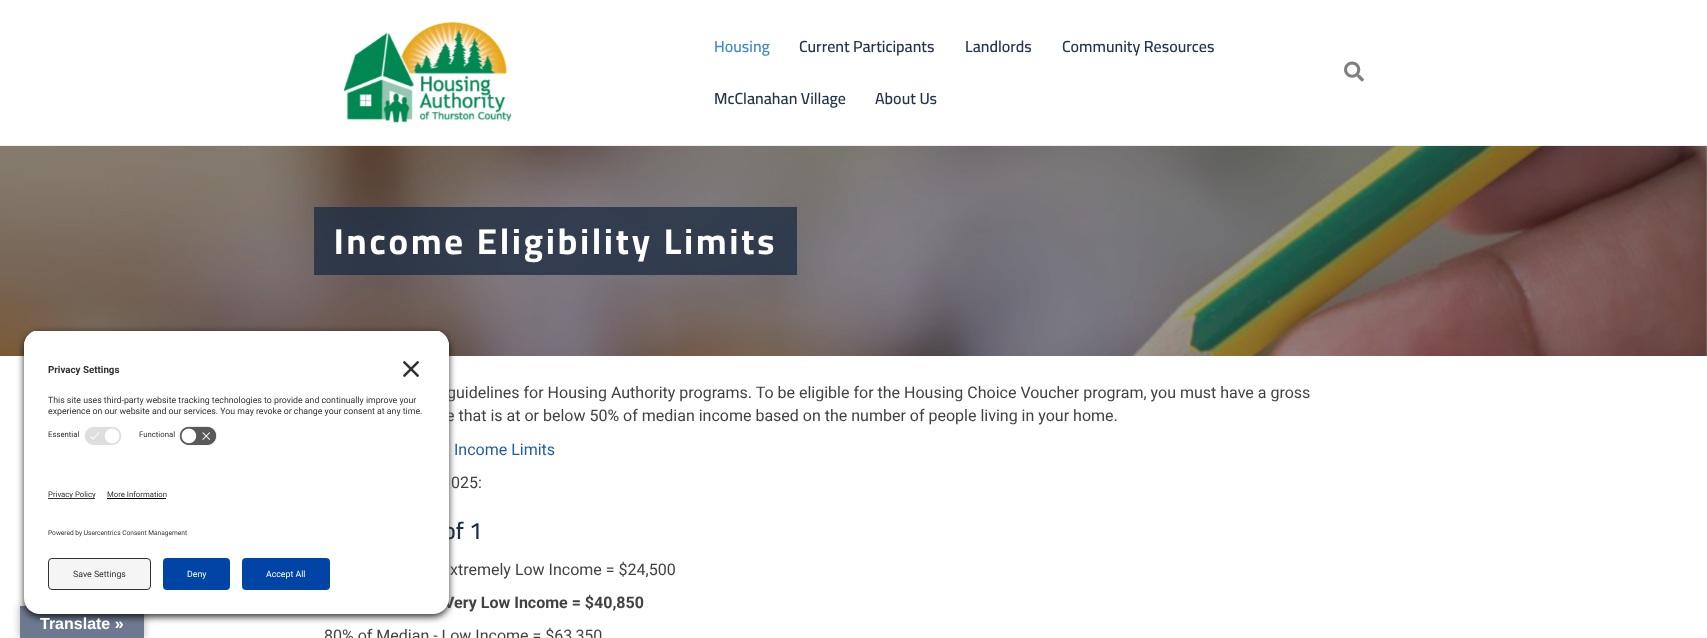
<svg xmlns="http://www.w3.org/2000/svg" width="1707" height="638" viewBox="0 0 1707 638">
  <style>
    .t1 { font: 16px Roboto; fill: #424242; }
    .t2 { font: bold 9.75px Roboto; fill: #303030; }
    .t3 { font: 8.75px Roboto; fill: #303030; }
    .t4 { font: 7.75px Roboto; fill: #303030; }
    .t5 { font: 600 24px Cairo; fill: #1f2e44; }
    .t6 { font: bold 16px Roboto; fill: #424242; }
    .t7 { font: 6.6px Roboto; fill: #303030; }
    .t8 { font: 8.75px Roboto; fill: #fff; }
    .t9 { font: 600 16px Cairo; fill: #428bca; }
    .t10 { font: 600 16px Cairo; fill: #24344f; }
    .t11 { font: bold 36px Cairo; letter-spacing: 3px; fill: #fff; }
    .t12 { font: 16px Roboto; fill: #215ca8; }
    .t13 { font: bold 16px Liberation Sans; fill: #fff; }
  </style>
  <defs>
    <clipPath id="clip1"><path d="M40 330H433C442 330 449 337 449 346V461H24V346C24 337 31 330 40 330Z"/></clipPath>
  </defs>
  <rect width="100%" height="100%" fill="#fff"/>
  <image x="0" y="146" width="1707" height="210" href="images/6.png"/>
  <rect x="20" y="606" width="124" height="32" fill="#0000004d" filter="blur(4.5px)"/>
  <rect x="20" y="606" width="124" height="32" fill="#6d7990"/>
  <rect x="24" y="333" width="425" height="284" rx="16" fill="#000000cc" filter="blur(3.5px)"/>
  <text x="447" y="398" class="t1">guidelines for Housing Authority programs. To be eligible for the Housing Choice Voucher program, you must have a gross</text>
  <text x="446" y="421" class="t1">e that is at or below 50% of median income based on the number of people living in your home.</text>
  <g clip-path="url(#clip1)">
    <rect x="24" y="331" width="425" height="130" fill="#fff"/>
    <rect x="24" y="331" width="425" height="90" fill="#fff"/>
  </g>
  <text x="48" y="373" class="t2">Privacy Settings</text>
  <image x="403" y="361" width="16" height="16" href="images/1.png"/>
  <text x="48" y="403" class="t3">This site uses third-party website tracking technologies to provide and continually improve your</text>
  <text x="48" y="414" class="t3">experience on our website and our services. You may revoke or change your consent at any time.</text>
  <text x="48" y="437" class="t4">Essential</text>
  <image x="84" y="426" width="38" height="19" href="images/2.png"/>
  <text x="139" y="437" class="t4">Functional</text>
  <image x="179" y="426" width="38" height="20" href="images/3.png"/>
  <text x="443" y="539" class="t5">of 1</text>
  <text x="444" y="608" class="t6">Very Low Income = $40,850</text>
  <path d="M24 461H449V598C449 607 442 614 433 614H40C31 614 24 607 24 598Z" fill="#fff"/>
  <rect x="48" y="498" width="47" height="1" fill="#303030"/>
  <text x="48" y="497" class="t4">Privacy Policy</text>
  <text x="107" y="497" class="t4">More Information</text>
  <rect x="107" y="498" width="59" height="1" fill="#000"/>
  <text x="48" y="535" class="t7">Powered by Usercentrics Consent Management</text>
  <rect x="48.5" y="558.5" width="102" height="31" rx="3.5" fill="#f5f5f5" stroke="#303030"/>
  <text x="73" y="577" class="t3">Save Settings</text>
  <rect x="163" y="558" width="67" height="32" rx="4" fill="#0045a5"/>
  <text x="187" y="577" class="t8">Deny</text>
  <rect x="242" y="558" width="88" height="32" rx="4" fill="#0045a5"/>
  <text x="266" y="577" class="t8">Accept All</text>
  <rect x="0" y="145" width="1707" height="1" fill="#eee"/>
  <image x="343" y="22" width="168" height="101" href="images/4.png"/>
  <text x="714" y="52" class="t9">Housing</text>
  <text x="799" y="52" class="t10">Current Participants</text>
  <text x="965" y="52" class="t10">Landlords</text>
  <text x="1062" y="52" class="t10">Community Resources</text>
  <text x="714" y="104" class="t10">McClanahan Village</text>
  <text x="875" y="104" class="t10">About Us</text>
  <image x="1344" y="61" width="20" height="21" href="images/5.png"/>
  <rect x="314" y="207" width="483" height="68" fill="#1f2e44cc"/>
  <text x="334" y="254" class="t11">Income Eligibility Limits</text>
  <text x="454" y="455" class="t12">Income Limits</text>
  <text x="451" y="488" class="t1">025:</text>
  <text x="450" y="575" class="t1">xtremely Low Income = $24,500</text>
  <text x="324" y="641" class="t1">80% of Median - Low Income = $63,350</text>
  <text x="40" y="629" class="t13">Translate »</text>
</svg>
